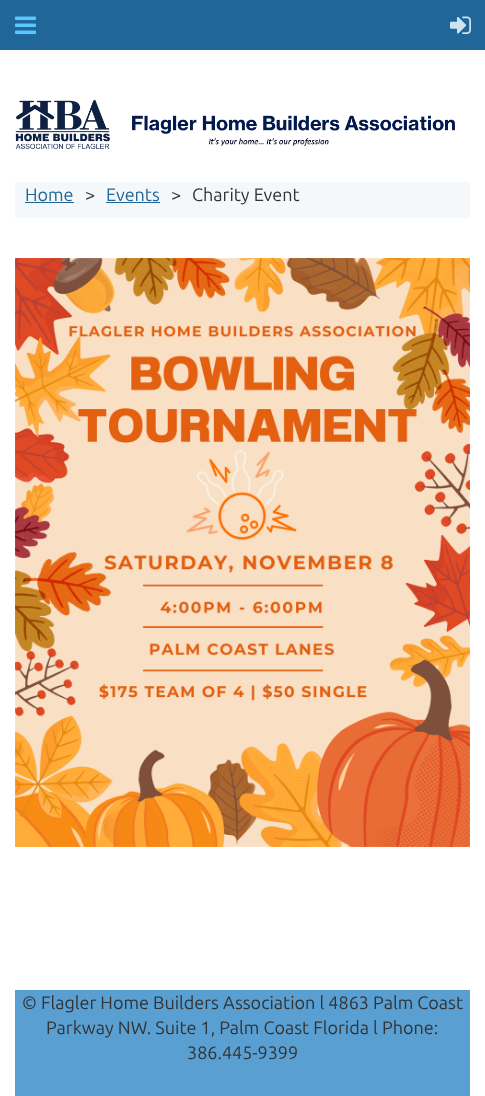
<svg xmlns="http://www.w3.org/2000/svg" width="485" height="1096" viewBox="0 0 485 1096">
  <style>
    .t1 { font: 18px Ubuntu; fill: #206699; }
    .t2 { font: 18px Ubuntu; fill: #333; }
  </style>
  <rect width="100%" height="100%" fill="#fff"/>
  <rect x="0" y="0" width="485" height="50" fill="#206699"/>
  <image x="15" y="16" width="21" height="19" href="images/1.png"/>
  <image x="450" y="16" width="21" height="18" href="images/2.png"/>
  <image x="15" y="100" width="440" height="49" href="images/3.png"/>
  <rect x="15" y="182" width="455" height="36" fill="#f4f8fa"/>
  <text x="25" y="201" class="t1">Home</text>
  <rect x="25" y="202" width="49" height="1" fill="#206699"/>
  <text x="85" y="201" class="t2">&gt;</text>
  <text x="106" y="201" class="t1">Events</text>
  <rect x="106" y="202" width="54" height="1" fill="#206699"/>
  <text x="171" y="201" class="t2">&gt;</text>
  <text x="192" y="201" class="t2">Charity Event</text>
  <image x="15" y="258" width="455" height="589" href="images/4.png"/>
  <rect x="15" y="990" width="455" height="106" fill="#599fd2"/>
  <text x="22" y="1009" class="t2">© Flagler Home Builders Association l 4863 Palm Coast</text>
  <text x="46" y="1034" class="t2">Parkway NW. Suite 1, Palm Coast Florida l Phone:</text>
  <text x="187" y="1059" class="t2">386.445-9399</text>
</svg>
